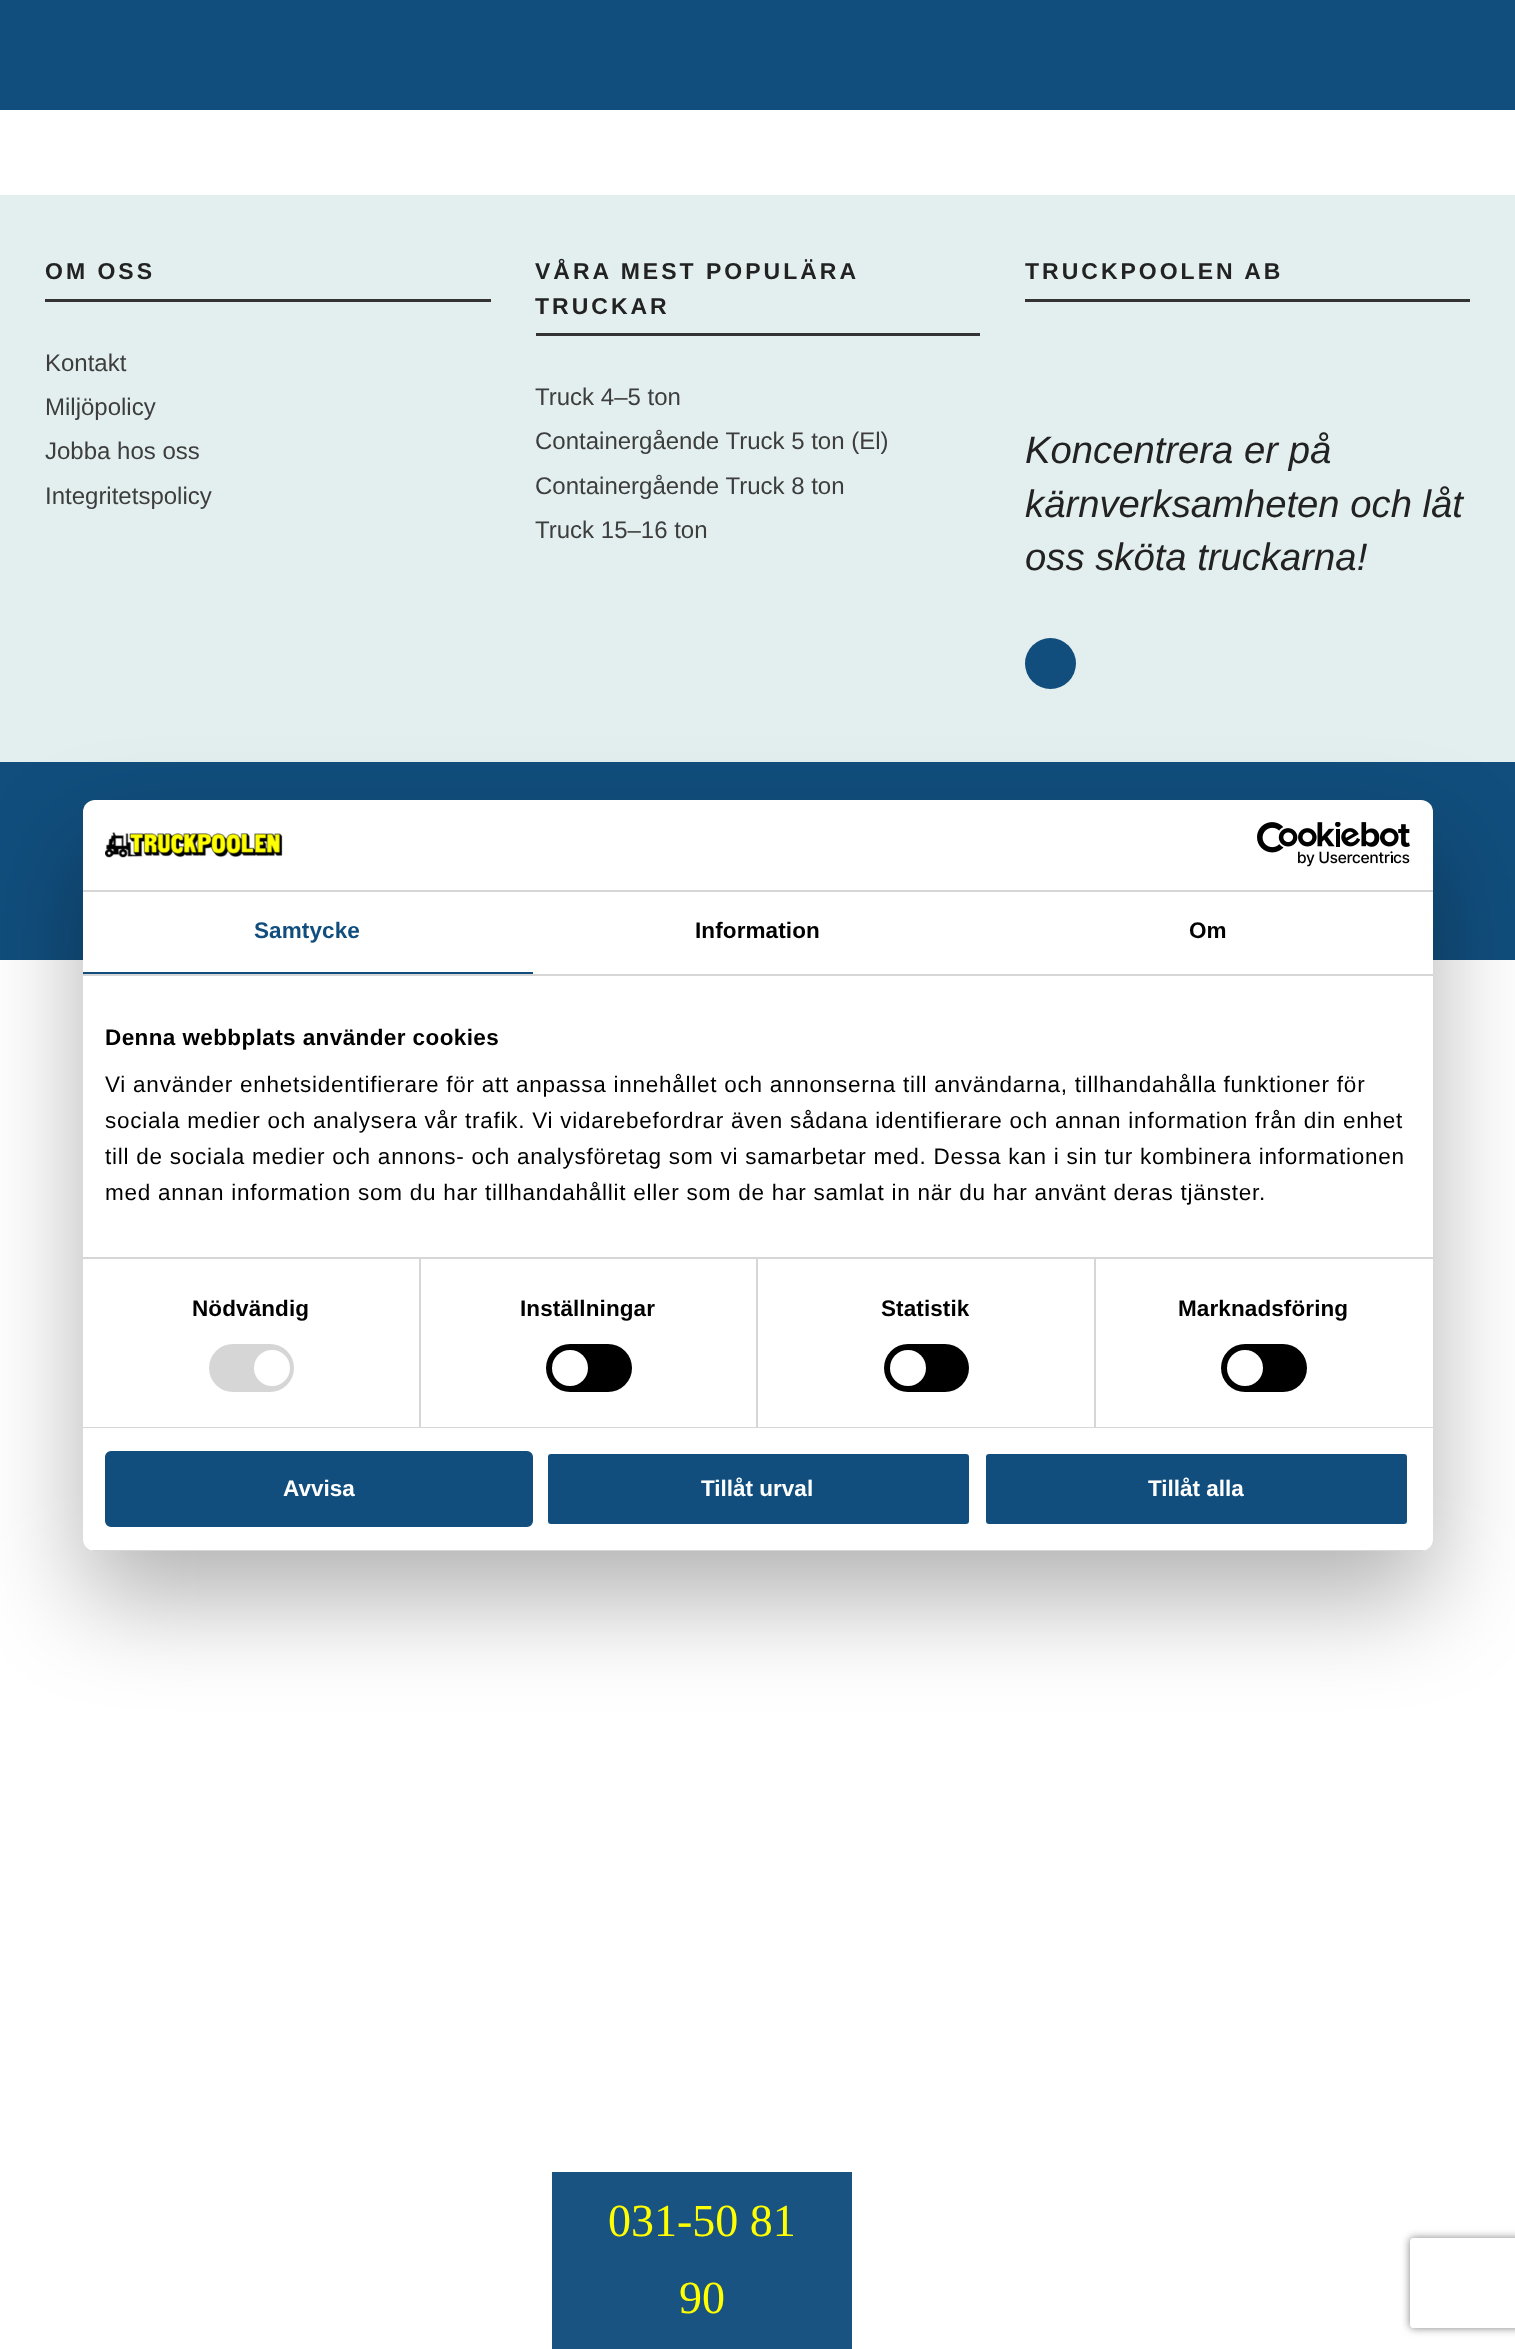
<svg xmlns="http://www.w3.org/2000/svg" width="1515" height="2349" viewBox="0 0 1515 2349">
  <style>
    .t1 { font: bold 23px Liberation Sans; letter-spacing: 3px; fill: #222; }
    .t2 { font: 24px Liberation Sans; fill: #3d3d3d; }
    .t3 { font: italic 38.25px Liberation Sans; fill: #222; }
    .t4 { font: bold 22.5px Liberation Sans; letter-spacing: 0.1px; fill: #114e7d; }
    .t5 { font: bold 22.5px Liberation Sans; letter-spacing: 0.1px; fill: #000; }
    .t6 { font: bold 22.5px Liberation Sans; letter-spacing: 0.4px; fill: #000; }
    .t7 { font: 22.5px Liberation Sans; letter-spacing: 0.75px; fill: #000; }
    .t8 { font: bold 22.5px Liberation Sans; fill: #fff; }
    .t9 { font: 46px Liberation Serif; fill: #ff0; }
  </style>
  <defs>
    <clipPath id="clip1"><rect x="83" y="800" width="1350" height="751" rx="12"/></clipPath>
    <clipPath id="clip2"><path d="M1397 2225H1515V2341H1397ZM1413 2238H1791C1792.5 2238 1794 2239.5 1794 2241V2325C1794 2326.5 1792.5 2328 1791 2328H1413C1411.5 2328 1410 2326.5 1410 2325V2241C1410 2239.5 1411.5 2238 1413 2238Z" clip-rule="evenodd"/></clipPath>
  </defs>
  <rect width="100%" height="100%" fill="#fff"/>
  <rect x="0" y="0" width="1515" height="110" fill="#114e7d"/>
  <rect x="0" y="195" width="1515" height="567" fill="#e3efef"/>
  <rect x="45" y="299" width="446" height="3" fill="#333"/>
  <text x="45" y="279" class="t1">OM OSS</text>
  <text x="45" y="371" class="t2">Kontakt</text>
  <text x="45" y="415" class="t2">Miljöpolicy</text>
  <text x="45" y="459" class="t2">Jobba hos oss</text>
  <text x="45" y="504" class="t2">Integritetspolicy</text>
  <rect x="536" y="333" width="444" height="3" fill="#333"/>
  <text x="535" y="279" class="t1">VÅRA MEST POPULÄRA</text>
  <text x="535" y="314" class="t1">TRUCKAR</text>
  <text x="535" y="405" class="t2">Truck 4–5 ton</text>
  <text x="535" y="449" class="t2">Containergående Truck 5 ton (El)</text>
  <text x="535" y="494" class="t2">Containergående Truck 8 ton</text>
  <text x="535" y="538" class="t2">Truck 15–16 ton</text>
  <rect x="1025" y="299" width="445" height="3" fill="#333"/>
  <text x="1025" y="279" class="t1">TRUCKPOOLEN AB</text>
  <text x="1025" y="463" class="t3">Koncentrera er på</text>
  <text x="1025" y="517" class="t3">kärnverksamheten och låt</text>
  <text x="1025" y="570" class="t3">oss sköta truckarna!</text>
  <circle cx="1050.5" cy="663.5" r="25.5" fill="#114e7d"/>
  <rect x="0" y="762" width="1515" height="198" fill="#114e7d"/>
  <rect x="83" y="848" width="1350" height="751" rx="12" fill="#0000004d" filter="blur(51px)"/>
  <rect x="83" y="800" width="1350" height="751" rx="12" fill="#fff"/>
  <rect x="83" y="890" width="1350" height="2" fill="#d6d6d6"/>
  <image x="105" y="832" width="178" height="26" href="images/1.png"/>
  <image x="1257" y="822" width="153" height="45" href="images/2.png"/>
  <rect x="83" y="974" width="1350" height="2" fill="#d6d6d6"/>
  <rect x="83" y="972" width="450" height="2" fill="#114e7d"/>
  <text x="254" y="938" class="t4">Samtycke</text>
  <text x="695" y="938" class="t5">Information</text>
  <text x="1189" y="938" class="t5">Om</text>
  <rect x="83" y="1257" width="1350" height="2" fill="#d6d6d6"/>
  <text x="105" y="1045" class="t6">Denna webbplats använder cookies</text>
  <text x="105" y="1092" class="t7">Vi använder enhetsidentifierare för att anpassa innehållet och annonserna till användarna, tillhandahålla funktioner för</text>
  <text x="105" y="1128" class="t7">sociala medier och analysera vår trafik. Vi vidarebefordrar även sådana identifierare och annan information från din enhet</text>
  <text x="105" y="1164" class="t7">till de sociala medier och annons- och analysföretag som vi samarbetar med. Dessa kan i sin tur kombinera informationen</text>
  <text x="105" y="1200" class="t7">med annan information som du har tillhandahållit eller som de har samlat in när du har använt deras tjänster.</text>
  <rect x="83" y="1427" width="1350" height="1" fill="#d6d6d6"/>
  <rect x="419" y="1259" width="2" height="168" fill="#d6d6d6"/>
  <text x="192" y="1316" class="t5">Nödvändig</text>
  <rect x="209" y="1344" width="85" height="48" rx="24" fill="#d6d6d6"/>
  <circle cx="272" cy="1368" r="18" fill="#fff"/>
  <rect x="756" y="1259" width="2" height="168" fill="#d6d6d6"/>
  <text x="520" y="1316" class="t5">Inställningar</text>
  <rect x="546" y="1344" width="86" height="48" rx="24" fill="#000"/>
  <circle cx="570" cy="1368" r="18" fill="#fff"/>
  <rect x="1094" y="1259" width="2" height="168" fill="#d6d6d6"/>
  <text x="881" y="1316" class="t5">Statistik</text>
  <rect x="884" y="1344" width="85" height="48" rx="24" fill="#000"/>
  <circle cx="908" cy="1368" r="18" fill="#fff"/>
  <text x="1178" y="1316" class="t5">Marknadsföring</text>
  <rect x="1221" y="1344" width="86" height="48" rx="24" fill="#000"/>
  <circle cx="1245" cy="1368" r="18" fill="#fff"/>
  <g clip-path="url(#clip1)">
    <rect x="83" y="1550" width="1350" height="1" fill="#d6d6d6"/>
  </g>
  <rect x="106.5" y="1452.5" width="425" height="73" rx="4.5" fill="#114e7d" stroke="#114e7d" stroke-width="3"/>
  <text x="283" y="1496" class="t8">Avvisa</text>
  <rect x="546.5" y="1452.5" width="424" height="73" rx="4.5" fill="#114e7d" stroke="#fff" stroke-width="3"/>
  <text x="701" y="1496" class="t8">Tillåt urval</text>
  <rect x="984.5" y="1452.5" width="424" height="73" rx="4.5" fill="#114e7d" stroke="#fff" stroke-width="3"/>
  <text x="1148" y="1496" class="t8">Tillåt alla</text>
  <rect x="552" y="2172" width="300" height="177" fill="#185381"/>
  <text x="608" y="2236" class="t9">031-50 81</text>
  <text x="679" y="2313" class="t9">90</text>
  <g clip-path="url(#clip2)">
    <rect x="1410" y="2238" width="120" height="90" rx="3" fill="#808080" filter="blur(4px)"/>
  </g>
</svg>
